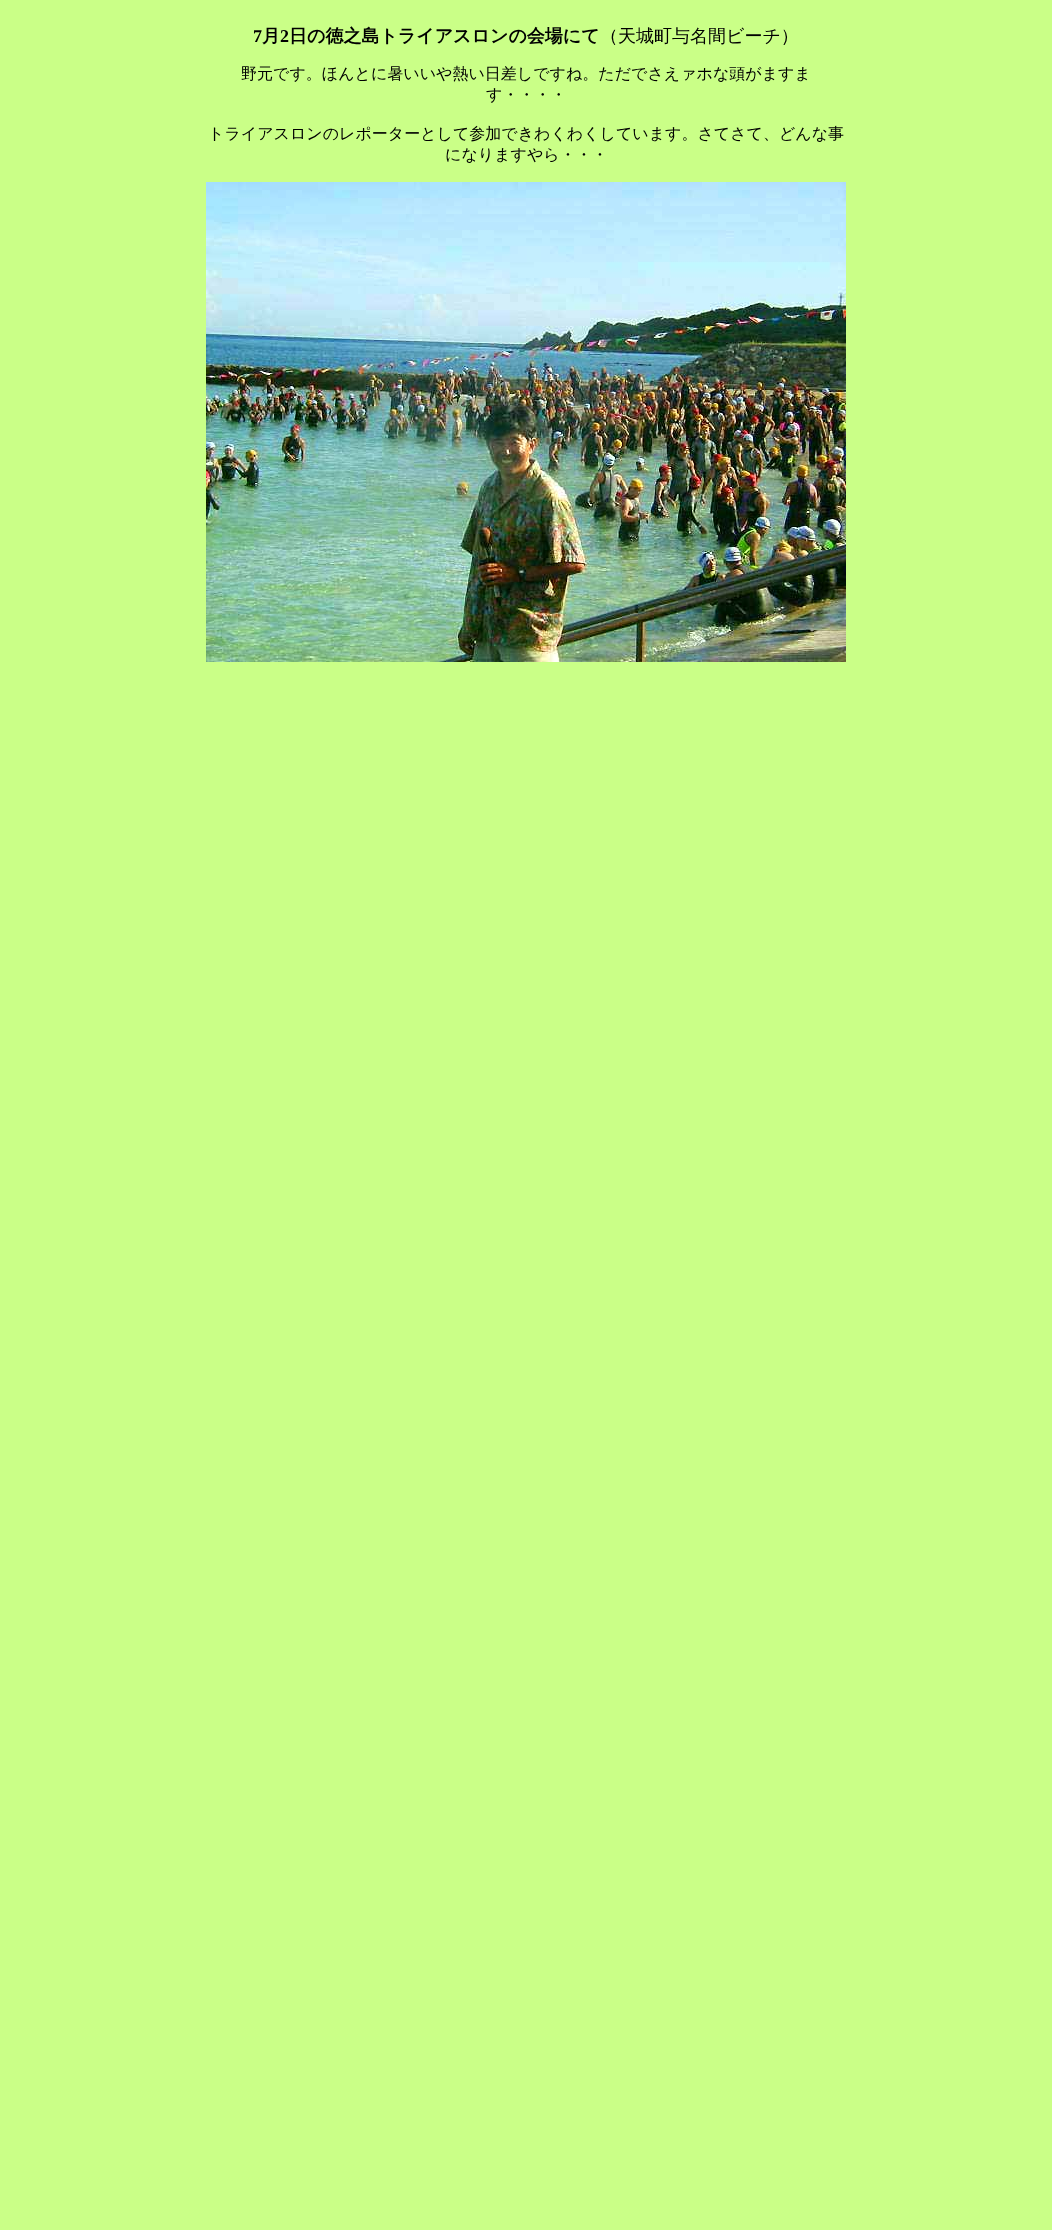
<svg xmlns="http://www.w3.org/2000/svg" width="1052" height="2230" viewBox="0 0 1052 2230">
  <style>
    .t1 { font: bold 18px Liberation Serif; fill: #000; }
    .t2 { font: bold 18px WenQuanYi Zen Hei; fill: #000; }
    .t3 { font: 500 18px WenQuanYi Zen Hei; fill: #000; }
    .t4 { font: 500 16px WenQuanYi Zen Hei; fill: #000; }
  </style>
  <rect width="100%" height="100%" fill="#caff87"/>
  <text x="253" y="42" class="t1">7</text>
  <text x="262" y="42" class="t2">月</text>
  <text x="280" y="42" class="t1">2</text>
  <text x="289" y="42" class="t2">日の徳之島トライアスロンの会場にて</text>
  <text x="600" y="42" class="t3">（天城町与名間ビーチ）</text>
  <text x="241" y="79" class="t4">野元です。ほんとに暑いいや熱い日差しですね。ただでさえァホな頭がますま</text>
  <text x="486" y="100" class="t4">す・・・・</text>
  <text x="208" y="139" class="t4">トライアスロンのレポーターとして参加できわくわくしています。さてさて、どんな事</text>
  <text x="445" y="160" class="t4">になりますやら・・・</text>
  <image x="206" y="182" width="640" height="480" href="images/1.png"/>
</svg>
